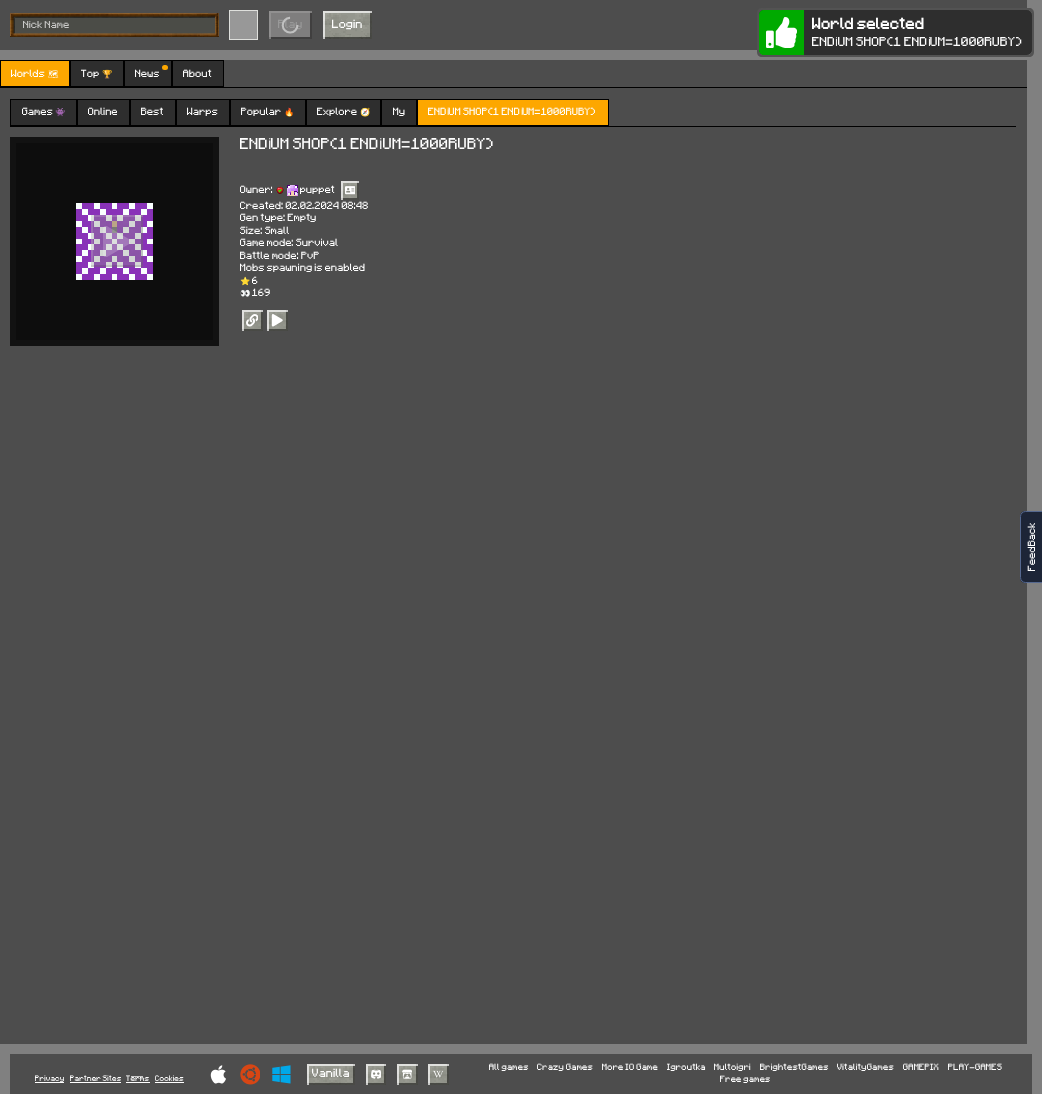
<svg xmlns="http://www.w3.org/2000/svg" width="1042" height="1094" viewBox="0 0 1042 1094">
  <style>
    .t1 { font: bold 12.5px 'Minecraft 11'; fill: #fff; }
    .t2 { font: 10.4px 'Minecraft 11'; fill: #fff; }
    .t3 { font: 10.4px Liberation Sans; fill: #fff; }
    .t4 { font: 8.3px 'Minecraft 11'; fill: #c9c9c8; }
    .t5 { font: 9.5px 'Minecraft 11'; fill: #999; }
    .t6 { font: 9.5px 'Minecraft 11'; fill: #fff; }
    .t7 { font: 8.3px 'Minecraft 11'; fill: #fff; }
    .t8 { font: 8.3px Noto Emoji; fill: #fff; }
    .t9 { font: 8.3px Noto Color Emoji; fill: #fff; }
    .t10 { font: 8.3px Liberation Sans; fill: #fff; }
    .t11 { font: 12.5px 'Minecraft 11'; fill: #fff; }
    .t12 { font: 12.5px Liberation Sans; fill: #fff; }
    .t13 { font: 7.25px 'Minecraft 11'; fill: #fff; }
    .t14 { font: 6.25px 'Minecraft 11'; fill: #fff; }
  </style>
  <defs>
    <clipPath id="clip1"><rect x="23" y="21" width="183" height="8"/></clipPath>
    <clipPath id="clip2"><rect x="269" y="11" width="43" height="28"/></clipPath>
    <clipPath id="clip3"><rect x="91" y="215" width="52" height="52"/></clipPath>
  </defs>
  <rect width="100%" height="100%" fill="#808080"/>
  <rect x="0" y="0" width="1027" height="50" fill="#4d4d4d"/>
  <path d="M762 8C759 8 757 10 757 13V48C757 50 758 52 760 52L759 50V15C759 12 761 10 764 10H1027L1029 11C1029 9 1027 8 1025 8Z" fill="#535353"/>
  <path d="M766 8C764 8 762 9 762 11L764 10H1027C1030 10 1032 12 1032 15V50L1031 52C1033 52 1034 50 1034 48V13C1034 10 1032 8 1029 8Z" fill="#535353"/>
  <path d="M760 13C758 13 757 15 757 17V52C757 55 759 57 762 57H1025C1027 57 1029 56 1029 54L1027 55H764C761 55 759 53 759 50V15Z" fill="#535353"/>
  <path d="M762 54C762 56 764 57 766 57H1029C1032 57 1034 55 1034 52V17C1034 15 1033 13 1031 13L1032 15V50C1032 53 1030 55 1027 55H764Z" fill="#535353"/>
  <rect x="759" y="10" width="273" height="45" rx="5" fill="#2e2e2e"/>
  <path d="M764 10H804V55H764C761 55 759 53 759 50V15C759 12 761 10 764 10Z" fill="#0a0"/>
  <image x="766" y="17" width="31" height="31" href="images/1.png"/>
  <text x="812" y="29" class="t1">World selected</text>
  <text x="812" y="46" class="t2">END UM SHOP(1 END UM=1000RUBY)</text>
  <text x="835" y="46" class="t3">İ</text>
  <text x="928" y="46" class="t3">İ</text>
  <image x="10" y="13" width="198" height="24" href="images/2.png"/>
  <g clip-path="url(#clip1)">
    <text x="23" y="28" class="t4">Nick Name</text>
  </g>
  <image x="208" y="13" width="11" height="24" href="images/3.png"/>
  <rect x="229.5" y="10.5" width="28" height="29" fill="#989898" stroke="#dfe0dd"/>
  <rect x="269" y="11" width="41" height="26" fill="#7f7e7e"/>
  <g clip-path="url(#clip2)">
    <path d="M170-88H411V138H170ZM267 9H310V37H267Z" fill="#403f3f" fill-rule="evenodd"/>
    <path d="M170-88H411V138H170ZM271 13H314V41H271Z" fill="#999999b3" fill-rule="evenodd"/>
  </g>
  <text x="278" y="28" class="t5">Play</text>
  <image x="281" y="16" width="18" height="18" href="images/4.png"/>
  <image x="323" y="11" width="49" height="28" href="images/5.png"/>
  <text x="332" y="28" class="t6">Login</text>
  <rect x="0" y="60" width="1027" height="984" fill="#4d4d4d"/>
  <rect x="0" y="87" width="1027" height="1" fill="#000"/>
  <rect x="0.5" y="60.5" width="69" height="26" fill="#fda700" stroke="#000"/>
  <text x="11" y="77" class="t7">Worlds</text>
  <text x="48" y="77" class="t8">🗺</text>
  <rect x="70.5" y="60.5" width="53" height="26" fill="#2e2e2e" stroke="#000"/>
  <text x="81" y="77" class="t7">Top</text>
  <text x="102" y="77" class="t9">🏆</text>
  <rect x="124.5" y="60.5" width="47" height="26" fill="#2e2e2e" stroke="#000"/>
  <rect x="162" y="65" width="6" height="5" rx="2.5" fill="#fda700"/>
  <text x="135" y="77" class="t7">News</text>
  <rect x="172.5" y="60.5" width="51" height="26" fill="#2e2e2e" stroke="#000"/>
  <text x="183" y="77" class="t7">About</text>
  <rect x="10" y="126" width="1006" height="1" fill="#000"/>
  <rect x="10.5" y="99.5" width="66" height="26" fill="#2e2e2e" stroke="#000"/>
  <text x="22" y="115" class="t7">Games</text>
  <text x="55" y="115" class="t9">👾</text>
  <rect x="77.5" y="99.5" width="52" height="26" fill="#2e2e2e" stroke="#000"/>
  <text x="88" y="115" class="t7">Online</text>
  <rect x="130.5" y="99.5" width="45" height="26" fill="#2e2e2e" stroke="#000"/>
  <text x="141" y="115" class="t7">Best</text>
  <rect x="176.5" y="99.5" width="53" height="26" fill="#2e2e2e" stroke="#000"/>
  <text x="187" y="115" class="t7">Warps</text>
  <rect x="230.5" y="99.5" width="75" height="26" fill="#2e2e2e" stroke="#000"/>
  <text x="241" y="115" class="t7">Popular</text>
  <text x="284" y="115" class="t9">🔥</text>
  <rect x="306.5" y="99.5" width="74" height="26" fill="#2e2e2e" stroke="#000"/>
  <text x="317" y="115" class="t7">Explore</text>
  <text x="360" y="115" class="t9">🧭</text>
  <rect x="381.5" y="99.5" width="35" height="26" fill="#2e2e2e" stroke="#000"/>
  <text x="393" y="115" class="t7">My</text>
  <rect x="417.5" y="99.5" width="191" height="26" fill="#fda700" stroke="#000"/>
  <text x="428" y="115" class="t7">END UM SHOP(1 END UM=1000RUBY)</text>
  <text x="447" y="115" class="t10">İ</text>
  <text x="521" y="115" class="t10">İ</text>
  <image x="10" y="137" width="209" height="209" href="images/6.png"/>
  <rect x="91" y="215" width="52" height="52" fill="#98989833"/>
  <image x="91" y="215" width="52" height="52" href="images/7.png"/>
  <g clip-path="url(#clip3)">
    <path d="M-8 116H242V366H-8ZM89 213H141V265H89Z" fill="#0000001a" fill-rule="evenodd"/>
    <path d="M-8 116H242V366H-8ZM93 217H145V269H93Z" fill="#ffffff24" fill-rule="evenodd"/>
  </g>
  <image x="103" y="226" width="27" height="31" href="images/8.png"/>
  <text x="240" y="149" class="t11">END</text>
  <text x="268" y="149" class="t12">İ</text>
  <text x="271" y="149" class="t11">UM SHOP(1 END</text>
  <text x="379" y="149" class="t12">İ</text>
  <text x="383" y="149" class="t11">UM=1000RUBY)</text>
  <text x="240" y="193" class="t7">Owner:</text>
  <image x="276" y="186" width="8" height="8" href="images/9.png"/>
  <image x="287" y="185" width="11" height="11" href="images/10.png"/>
  <text x="300" y="193" class="t7">puppet</text>
  <image x="341" y="181" width="18" height="19" href="images/11.png"/>
  <image x="345" y="186" width="10" height="9" href="images/12.png"/>
  <text x="240" y="209" class="t7">Created: 02.02.2024 08:48</text>
  <text x="240" y="221" class="t7">Gen type: Empty</text>
  <text x="240" y="234" class="t7">Size: Small</text>
  <text x="240" y="246" class="t7">Game mode: Survival</text>
  <text x="240" y="259" class="t7">Battle mode: PvP</text>
  <text x="240" y="271" class="t7">Mobs spawning is enabled</text>
  <text x="240" y="284" class="t9">⭐</text>
  <text x="252" y="284" class="t7">6</text>
  <text x="240" y="296" class="t9">👀</text>
  <text x="252" y="296" class="t7">169</text>
  <image x="242" y="310" width="21" height="21" href="images/13.png"/>
  <image x="246" y="314" width="12" height="13" href="images/14.png"/>
  <image x="267" y="310" width="21" height="21" href="images/13.png"/>
  <image x="271" y="314" width="12" height="13" href="images/15.png"/>
  <rect x="10" y="1054" width="1022" height="40" fill="#4d4d4d"/>
  <image x="210" y="1065" width="16" height="19" href="images/16.png"/>
  <image x="240" y="1064" width="20" height="21" href="images/17.png"/>
  <image x="272" y="1065" width="19" height="19" href="images/18.png"/>
  <image x="307" y="1064" width="48" height="21" href="images/19.png"/>
  <text x="312" y="1077" class="t6">Vanilla</text>
  <image x="366" y="1064" width="20" height="21" href="images/20.png"/>
  <image x="371" y="1069" width="10" height="10" href="images/21.png"/>
  <image x="397" y="1064" width="21" height="21" href="images/13.png"/>
  <image x="402" y="1069" width="10" height="10" href="images/22.png"/>
  <image x="428" y="1064" width="21" height="21" href="images/13.png"/>
  <image x="433" y="1070" width="11" height="8" href="images/23.png"/>
  <text x="489" y="1070" class="t13">All games</text>
  <text x="537" y="1070" class="t13">Crazy Games</text>
  <text x="602" y="1070" class="t13">More IO Game</text>
  <text x="667" y="1070" class="t13">Igroutka</text>
  <text x="714" y="1070" class="t13">Multoigri</text>
  <text x="760" y="1070" class="t13">BrightestGames</text>
  <text x="837" y="1070" class="t13">VitalityGames</text>
  <text x="903" y="1070" class="t13">GAMEPIX</text>
  <text x="948" y="1070" class="t13">PLAY-GAMES</text>
  <text x="720" y="1082" class="t13">Free games</text>
  <text x="35" y="1081" class="t14">Privacy</text>
  <rect x="35" y="1082" width="29" height="1" fill="#fff"/>
  <text x="70" y="1081" class="t14">Partner Sites</text>
  <rect x="70" y="1082" width="51" height="1" fill="#fff"/>
  <rect x="131" y="1076" width="12" height="1" fill="#cacaca"/>
  <text x="126" y="1081" class="t14">Terms</text>
  <rect x="126" y="1082" width="24" height="1" fill="#fff"/>
  <text x="155" y="1081" class="t14">Cookies</text>
  <rect x="155" y="1082" width="29" height="1" fill="#fff"/>
  <path d="M1020 578V516C1020 513 1023 511 1025 511H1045V583H1025C1023 583 1020 581 1020 578Z" fill="#1d2537"/>
  <path d="M1020.5 577.5V516.5C1020.5 513.5 1023 511.5 1025.5 511.5H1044.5V582.5H1025.5C1023 582.5 1020.5 580.5 1020.5 577.5Z" fill="none" stroke="#55688f"/>
  <text x="1035" y="571" transform="rotate(-90 1035 571)" class="t7">FeedBack</text>
</svg>
